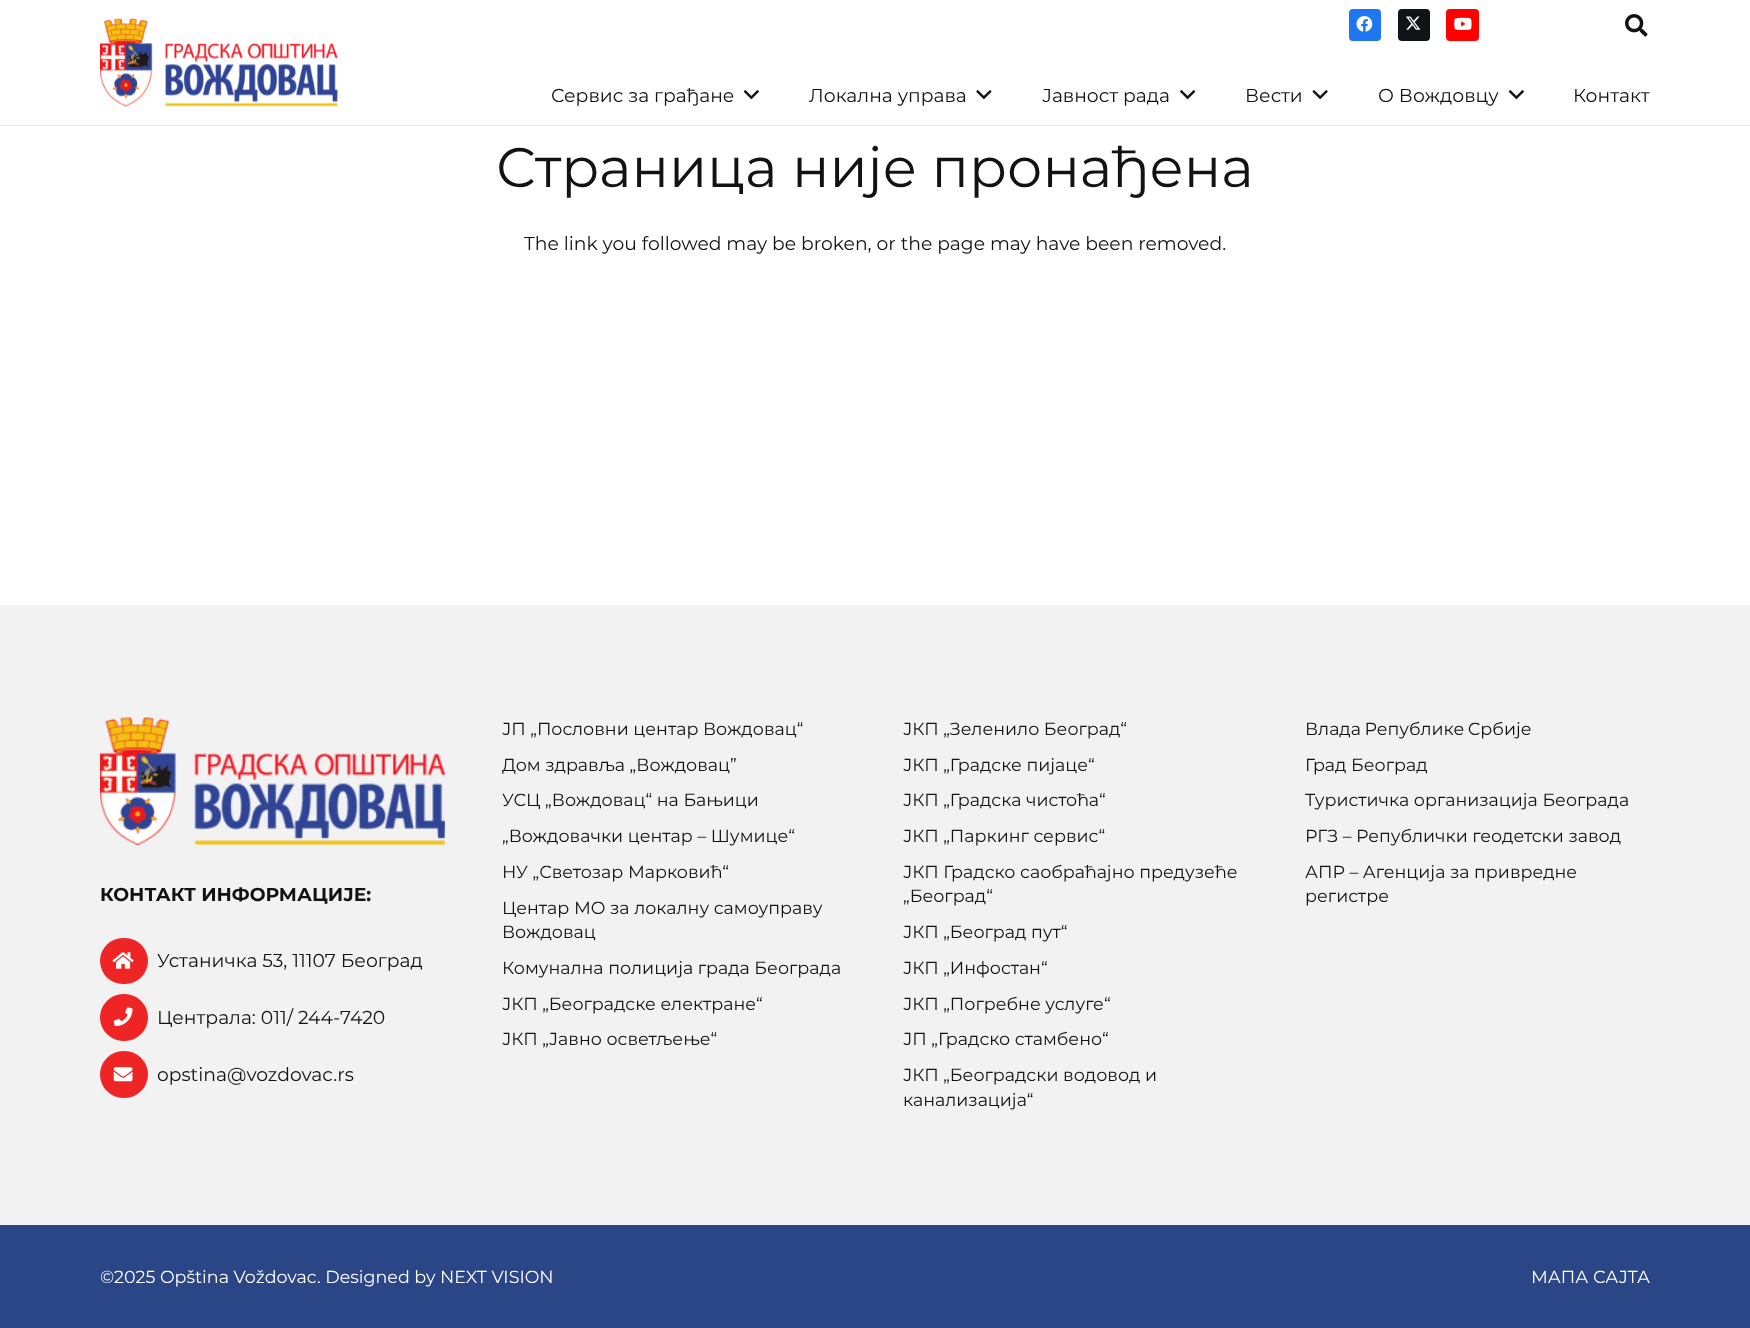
<svg xmlns="http://www.w3.org/2000/svg" width="1750" height="1328" viewBox="0 0 1750 1328">
  <style>
    .t1 { font: 18.75px Montserrat; fill: #121212; }
    .t2 { font: 55.5px Montserrat; fill: #121212; }
    .t3 { font: bold 18.75px Montserrat; fill: #121212; }
    .t4 { font: 17.5px Montserrat; fill: #121212; }
    .t5 { font: 17.5px Montserrat; fill: #fff; }
  </style>
  <rect width="100%" height="100%" fill="#fff"/>
  <rect x="0" y="125" width="1750" height="1" fill="#ebebeb"/>
  <image x="100" y="18" width="238" height="89" href="images/1.png"/>
  <rect x="1349" y="9" width="32" height="32" rx="4" fill="#1e77f0"/>
  <image x="1356" y="16" width="17" height="16" href="images/2.png"/>
  <rect x="1398" y="9" width="32" height="32" rx="4" fill="#0f1419"/>
  <image x="1406" y="16" width="15" height="14" href="images/3.png"/>
  <rect x="1446" y="9" width="33" height="32" rx="4" fill="#f00"/>
  <image x="1454" y="17" width="18" height="13" href="images/4.png"/>
  <image x="1625" y="14" width="23" height="23" href="images/5.png"/>
  <text x="551" y="102" class="t1">Сервис за грађане</text>
  <image x="743" y="90" width="16" height="10" href="images/6.png"/>
  <text x="809" y="102" class="t1">Локална управа</text>
  <image x="976" y="90" width="16" height="10" href="images/7.png"/>
  <text x="1042" y="102" class="t1">Јавност рада</text>
  <image x="1180" y="90" width="16" height="10" href="images/8.png"/>
  <text x="1245" y="102" class="t1">Вести</text>
  <image x="1312" y="90" width="16" height="10" href="images/9.png"/>
  <text x="1378" y="102" class="t1">О Вождовцу</text>
  <image x="1508" y="90" width="16" height="10" href="images/6.png"/>
  <text x="1573" y="102" class="t1">Контакт</text>
  <text x="496" y="187" class="t2">Страница није пронађена</text>
  <text x="524" y="250" class="t1">The link you followed may be broken, or the page may have been removed.</text>
  <rect x="0" y="605" width="1750" height="620" fill="#f2f2f2"/>
  <image x="100" y="717" width="345" height="128" href="images/10.png"/>
  <text x="100" y="901" class="t3">КОНТАКТ ИНФОРМАЦИЈЕ:</text>
  <rect x="100" y="938" width="48" height="46" rx="23" fill="#ee2425"/>
  <image x="112" y="952" width="22" height="17" href="images/11.png"/>
  <text x="157" y="967" class="t1">Устаничка 53, 11107 Београд</text>
  <rect x="100" y="994" width="48" height="47" rx="23.5" fill="#ee2425"/>
  <image x="113" y="1007" width="20" height="20" href="images/12.png"/>
  <text x="157" y="1024" class="t1">Централа: 011/ 244-7420</text>
  <rect x="100" y="1051" width="48" height="47" rx="23.5" fill="#ee2425"/>
  <image x="113" y="1067" width="20" height="15" href="images/13.png"/>
  <text x="157" y="1081" class="t1">opstina@vozdovac.rs</text>
  <text x="502" y="735" class="t4">ЈП „Пословни центар Вождовац“</text>
  <text x="502" y="771" class="t4">Дом здравља „Вождовац”</text>
  <text x="502" y="806" class="t4">УСЦ „Вождовац“ на Бањици</text>
  <text x="502" y="842" class="t4">„Вождовачки центар – Шумице“</text>
  <text x="502" y="878" class="t4">НУ „Светозар Марковић“</text>
  <text x="502" y="914" class="t4">Центар МO за локалну самоуправу</text>
  <text x="502" y="938" class="t4">Вождовац</text>
  <text x="502" y="974" class="t4">Комунална полиција града Београда</text>
  <text x="502" y="1010" class="t4">ЈКП „Београдске електране“</text>
  <text x="502" y="1045" class="t4">ЈКП „Јавно осветљење“</text>
  <text x="903" y="735" class="t4">ЈКП „Зеленило Београд“</text>
  <text x="903" y="771" class="t4">ЈКП „Градске пијаце“</text>
  <text x="903" y="806" class="t4">ЈКП „Градска чистоћа“</text>
  <text x="903" y="842" class="t4">ЈКП „Паркинг сервис“</text>
  <text x="903" y="878" class="t4">ЈКП Градско саобраћајно предузеће</text>
  <text x="903" y="902" class="t4">„Београд“</text>
  <text x="903" y="938" class="t4">ЈКП „Београд пут“</text>
  <text x="903" y="974" class="t4">ЈКП „Инфостан“</text>
  <text x="903" y="1010" class="t4">ЈКП „Погребне услуге“</text>
  <text x="903" y="1045" class="t4">ЈП „Градско стамбено“</text>
  <text x="903" y="1081" class="t4">ЈКП „Београдски водовод и</text>
  <text x="903" y="1106" class="t4">канализација“</text>
  <text x="1305" y="735" word-spacing="-1" class="t4">Влада Републике Србије</text>
  <text x="1305" y="771" class="t4">Град Београд</text>
  <text x="1305" y="806" class="t4">Туристичка организација Београда</text>
  <text x="1305" y="842" class="t4">РГЗ – Републички геодетски завод</text>
  <text x="1305" y="878" class="t4">АПР – Агенција за привредне</text>
  <text x="1305" y="902" class="t4">регистре</text>
  <rect x="0" y="1225" width="1750" height="103" fill="#2a4687"/>
  <text x="100" y="1283" class="t5">©2025 Opština Voždovac. Designed by NEXT VISION</text>
  <text x="1531" y="1283" class="t5">МАПА САЈТА</text>
</svg>
